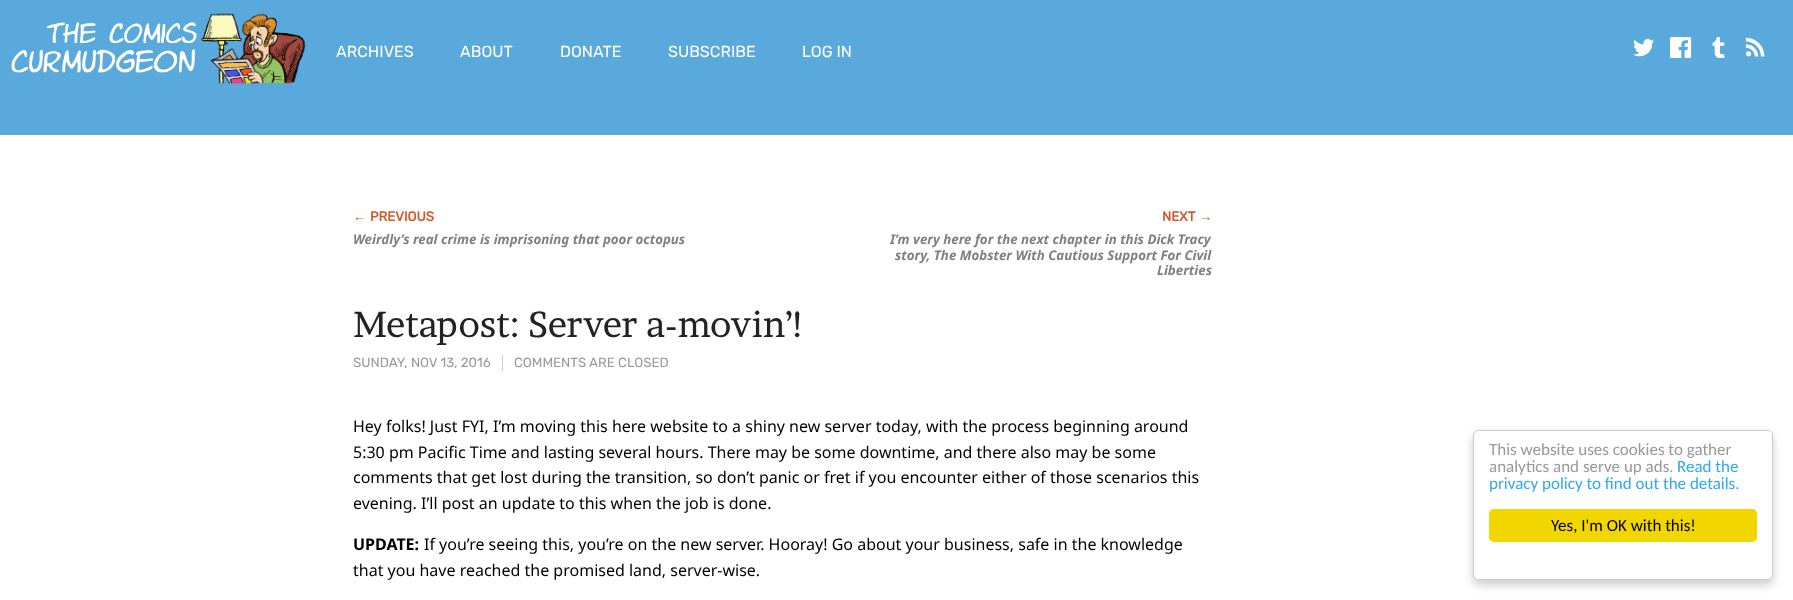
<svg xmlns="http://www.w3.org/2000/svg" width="1793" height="600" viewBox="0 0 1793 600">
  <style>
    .t1 { font: 300 16px Rubik; fill: #fff; }
    .t2 { font: bold 13.3px Liberation Sans; fill: #d5552a; }
    .t3 { font: bold 13.3px Rubik; fill: #d5552a; }
    .t4 { font: italic bold 13.3px Noto Sans; fill: #808080; }
    .t5 { font: 36px Brawler; fill: #242225; }
    .t6 { font: 300 13.3px Rubik; fill: #999; }
    .t7 { font: 16px Noto Sans; fill: #000; }
    .t8 { font: bold 16px Noto Sans; fill: #000; }
    .t9 { font: 17px Carlito; fill: #999; }
    .t10 { font: 17px Carlito; fill: #31a8f0; }
    .t11 { font: 17px Carlito; fill: #000; }
  </style>
  <rect width="100%" height="100%" fill="#fff"/>
  <rect x="0" y="0" width="1793" height="135" fill="#59a9dd"/>
  <image x="11" y="22" width="186" height="51" href="images/1.png"/>
  <image x="201" y="13" width="105" height="71" href="images/2.png"/>
  <text x="336" y="57" class="t1">ARCHIVES</text>
  <text x="460" y="57" class="t1">ABOUT</text>
  <text x="560" y="57" class="t1">DONATE</text>
  <text x="668" y="57" class="t1">SUBSCRIBE</text>
  <text x="802" y="57" class="t1">LOG IN</text>
  <image x="1633" y="39" width="21" height="18" href="images/3.png"/>
  <image x="1670" y="37" width="22" height="21" href="images/4.png"/>
  <image x="1712" y="37" width="13" height="21" href="images/5.png"/>
  <image x="1745" y="37" width="20" height="20" href="images/6.png"/>
  <text x="353" y="221" class="t2">←</text>
  <text x="370" y="221" class="t3">PREVIOUS</text>
  <text x="353" y="244" class="t4">Weirdly’s real crime is imprisoning that poor octopus</text>
  <text x="1162" y="221" class="t3">NEXT</text>
  <text x="1199" y="221" class="t2">→</text>
  <text x="890" y="244" class="t4">I’m very here for the next chapter in this Dick Tracy</text>
  <text x="895" y="260" class="t4">story, The Mobster With Cautious Support For Civil</text>
  <text x="1157" y="275" class="t4">Liberties</text>
  <text x="353" y="337" class="t5">Metapost: Server a-movin’!</text>
  <text x="353" y="367" class="t6">SUNDAY, NOV 13, 2016</text>
  <rect x="502" y="355" width="1" height="16" fill="#ccc"/>
  <text x="514" y="367" class="t6">COMMENTS ARE CLOSED</text>
  <text x="353" y="432" class="t7">Hey folks! Just FYI, I’m moving this here website to a shiny new server today, with the process beginning around</text>
  <text x="353" y="458" class="t7">5:30 pm Pacific Time and lasting several hours. There may be some downtime, and there also may be some</text>
  <text x="353" y="483" class="t7">comments that get lost during the transition, so don’t panic or fret if you encounter either of those scenarios this</text>
  <text x="353" y="509" class="t7">evening. I’ll post an update to this when the job is done.</text>
  <text x="353" y="550" class="t8">UPDATE:</text>
  <text x="424" y="550" class="t7">If you’re seeing this, you’re on the new server. Hooray! Go about your business, safe in the knowledge</text>
  <text x="353" y="576" class="t7">that you have reached the promised land, server-wise.</text>
  <rect x="1473" y="435" width="300" height="150" rx="5" fill="#00000033" filter="blur(5px)"/>
  <rect x="1473.5" y="430.5" width="299" height="149" rx="4.5" fill="#fff" stroke="#ccc"/>
  <text x="1489" y="455" class="t9">This website uses cookies to gather</text>
  <text x="1489" y="472" class="t9">analytics and serve up ads.</text>
  <text x="1677" y="472" class="t10">Read the</text>
  <text x="1489" y="489" class="t10">privacy policy to find out the details.</text>
  <rect x="1489" y="509" width="268" height="33" rx="5" fill="#f1d600"/>
  <text x="1551" y="531" class="t11">Yes, I'm OK with this!</text>
</svg>
